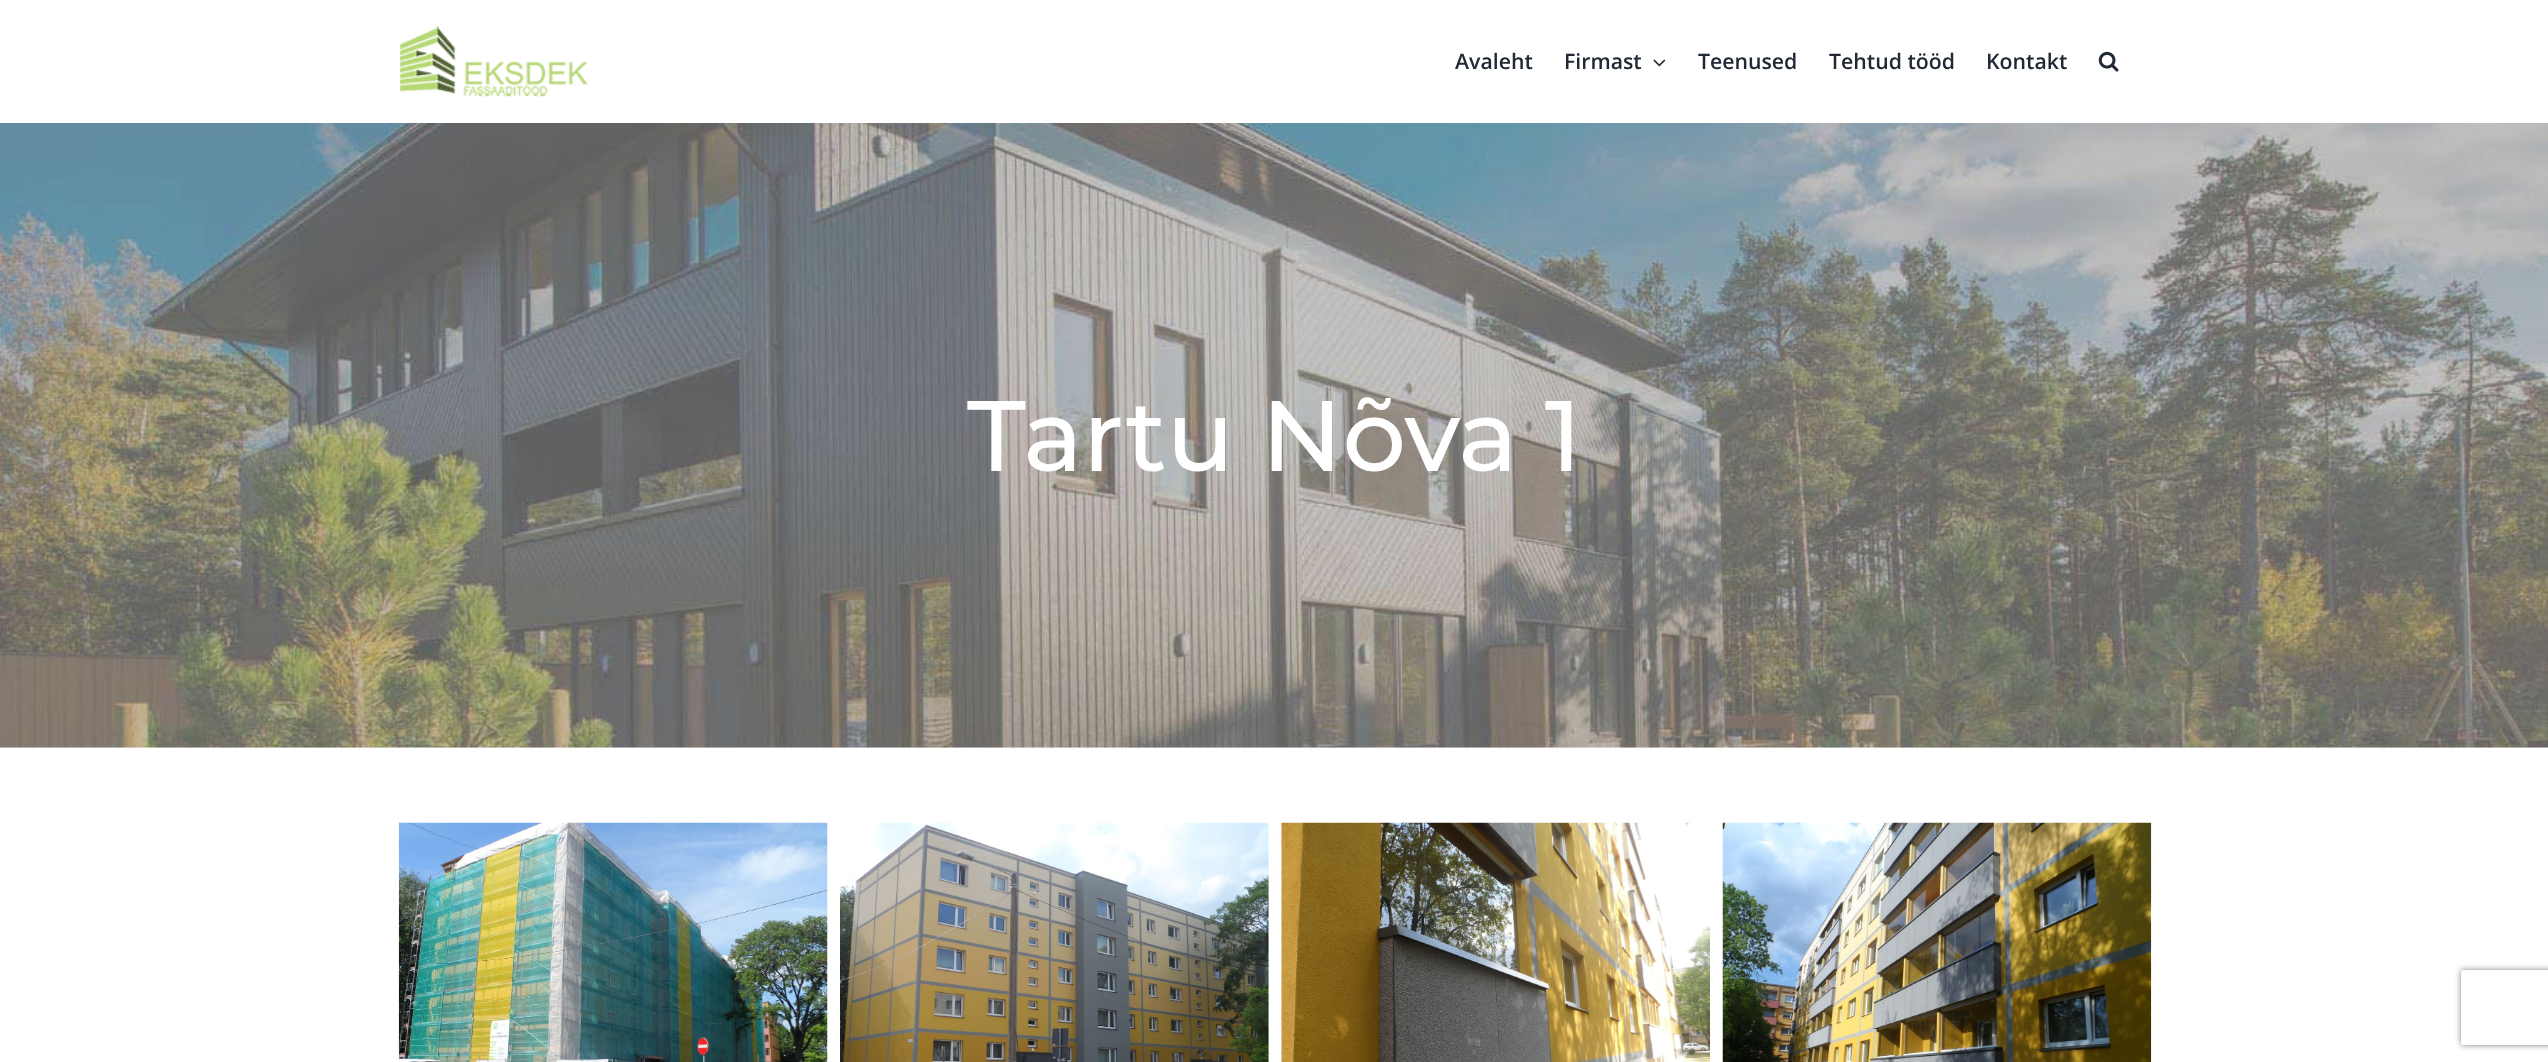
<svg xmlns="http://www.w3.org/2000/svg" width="2548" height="1062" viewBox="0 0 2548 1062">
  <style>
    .t1 { font: 600 21.25px Open Sans; fill: #212934; }
    .t2 { font: 500 100px Montserrat; fill: #fff; }
  </style>
  <defs>
    <clipPath id="clip1"><path d="M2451 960H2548V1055H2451ZM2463.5 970H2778.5C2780 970 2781 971 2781 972.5V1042.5C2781 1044 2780 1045 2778.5 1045H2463.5C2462 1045 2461 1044 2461 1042.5V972.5C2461 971 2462 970 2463.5 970Z" clip-rule="evenodd"/></clipPath>
  </defs>
  <rect width="100%" height="100%" fill="#fff"/>
  <image x="399" y="26" width="189" height="71" href="images/1.png"/>
  <text x="1455" y="69" class="t1">Avaleht</text>
  <text x="1564" y="69" class="t1">Firmast</text>
  <image x="1653" y="59" width="13" height="8" href="images/2.png"/>
  <text x="1698" y="69" class="t1">Teenused</text>
  <text x="1829" y="69" class="t1">Tehtud tööd</text>
  <text x="1986" y="69" class="t1">Kontakt</text>
  <image x="2098" y="51" width="21" height="21" href="images/3.png"/>
  <rect x="0" y="747" width="2548" height="1" fill="#f2f3f5"/>
  <image x="0" y="123" width="2548" height="625" href="images/4.png"/>
  <text x="967" y="471" class="t2">Tartu Nõva 1</text>
  <image x="398" y="822" width="430" height="240" href="images/5.png"/>
  <image x="840" y="822" width="429" height="240" href="images/6.png"/>
  <image x="1281" y="822" width="429" height="240" href="images/7.png"/>
  <image x="1722" y="822" width="430" height="240" href="images/8.png"/>
  <g clip-path="url(#clip1)">
    <rect x="2461" y="970" width="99" height="75" rx="2.5" fill="#808080" filter="blur(3px)"/>
  </g>
</svg>
